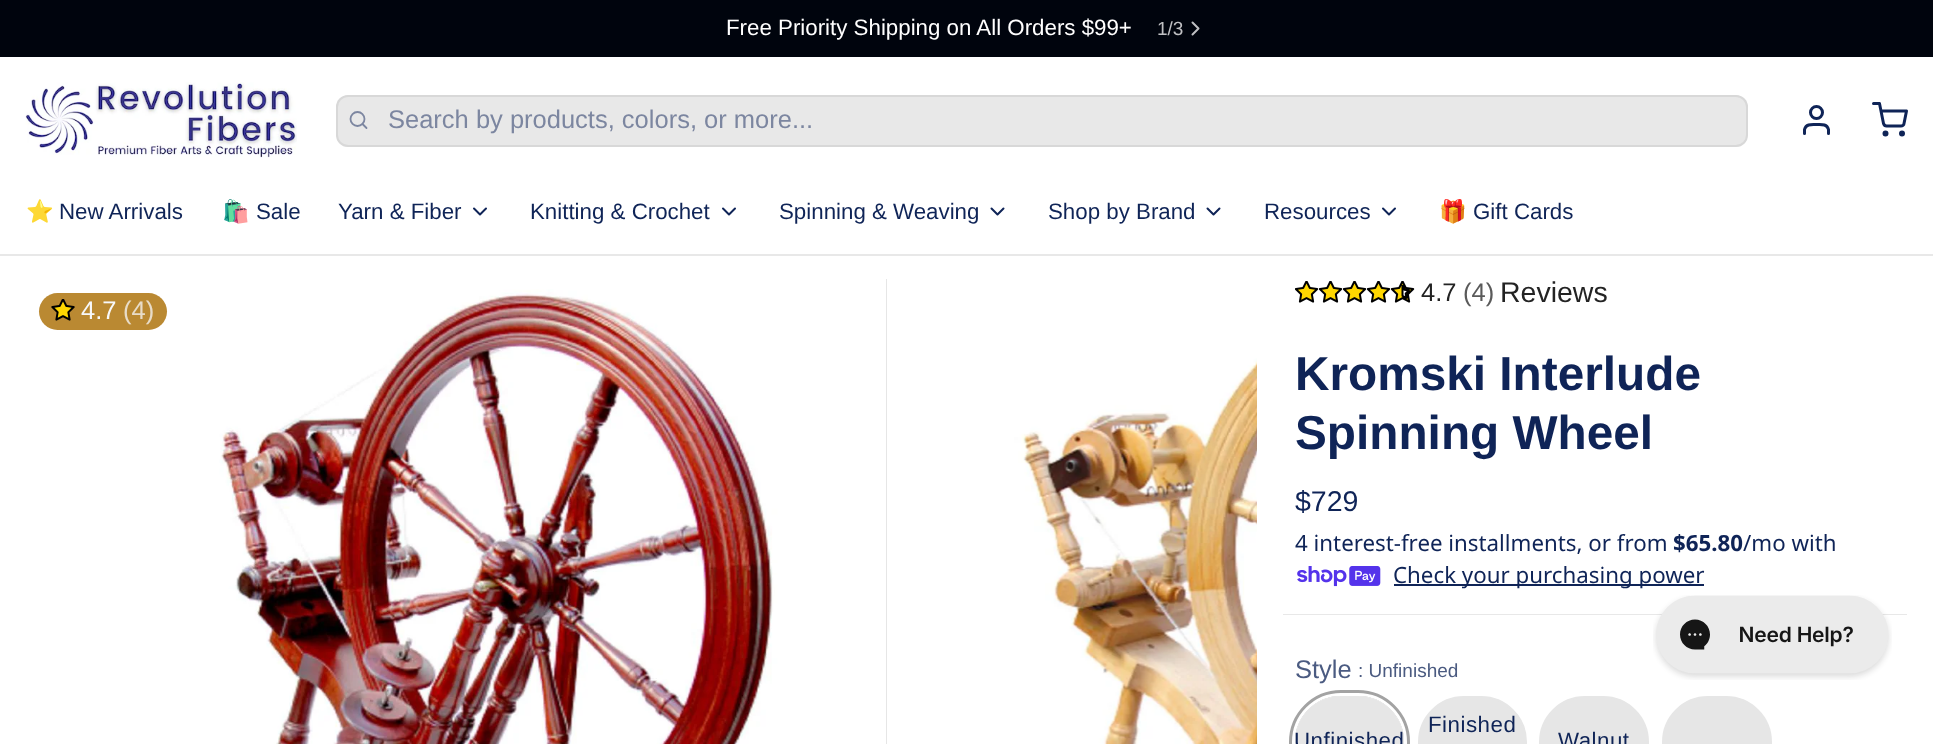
<svg xmlns="http://www.w3.org/2000/svg" width="1933" height="744" viewBox="0 0 1933 744">
  <style>
    .t1 { font: 22.3px Liberation Sans; fill: #fff; }
    .t2 { font: 19px Liberation Sans; fill: #bfc0c3; }
    .t3 { font: 25.5px Liberation Sans; fill: #7c86a0; }
    .t4 { font: 22.3px Noto Color Emoji; fill: #0f2457; }
    .t5 { font: 22.3px Liberation Sans; fill: #0f2457; }
    .t6 { font: 25.5px Liberation Sans; fill: #f7f8fa; }
    .t7 { font: 25.5px Liberation Sans; fill: #e8dcc8; }
    .t8 { font: 25.5px Liberation Sans; fill: #232323; }
    .t9 { font: 25.5px Liberation Sans; fill: #5a5a5a; }
    .t10 { font: 28.5px Liberation Sans; fill: #232323; }
    .t11 { font: bold 47.75px Liberation Sans; fill: #0f2457; }
    .t12 { font: 28.5px Liberation Sans; fill: #0f2457; }
    .t13 { font: 22.3px Noto Sans; fill: #0f2457; }
    .t14 { font: bold 22.3px Noto Sans; fill: #0f2457; }
    .t15 { font: 25.5px Liberation Sans; fill: #4b5b81; }
    .t16 { font: 19px Liberation Sans; fill: #4b5b81; }
    .t17 { font: 22.3px Liberation Sans; letter-spacing: 0.5px; fill: #0f2457; }
  </style>
  <rect width="100%" height="100%" fill="#fff"/>
  <rect x="0" y="0" width="1933" height="57" fill="#00040d"/>
  <text x="726" y="35" class="t1">Free Priority Shipping on All Orders $99+</text>
  <text x="1157" y="35" class="t2">1/3</text>
  <path d="M1192.5 34.5L1198.5 28.5L1192.5 22.5" fill="none" stroke="#bfc0c3" stroke-width="2" stroke-linecap="round" stroke-linejoin="round"/>
  <rect x="0" y="254" width="1933" height="2" fill="#e8e8e8"/>
  <image x="25" y="82" width="272" height="76" href="images/1.png"/>
  <rect x="336" y="95" width="1412" height="52" rx="12" fill="#e8e8e8"/>
  <rect x="337" y="96" width="1410" height="50" rx="11" fill="none" stroke="#b3b3b34d" stroke-width="2"/>
  <circle cx="357.5" cy="119" r="7" fill="none" stroke="#7c86a0" stroke-width="1.8"/>
  <path d="M366.5 128L362.5 124" fill="none" stroke="#7c86a0" stroke-width="1.8" stroke-linecap="round" stroke-linejoin="round"/>
  <text x="388" y="128" class="t3">Search by products, colors, or more...</text>
  <path d="M1828.5 133.5V129.5C1827 123.5 1821 124.5 1816.5 124.5C1812 124.5 1806 123.5 1804.5 129.5V133.5" fill="none" stroke="#0f2457" stroke-width="3" stroke-linecap="round" stroke-linejoin="round"/>
  <circle cx="1816.5" cy="112.5" r="6" fill="none" stroke="#0f2457" stroke-width="3"/>
  <circle cx="1885.5" cy="133.5" r="1.5" fill="none" stroke="#0f2457" stroke-width="3"/>
  <circle cx="1902" cy="133.5" r="1.5" fill="none" stroke="#0f2457" stroke-width="3"/>
  <path d="M1873.5 103.5H1879.5L1883.5 123.5C1884 125 1885 126 1886.5 126H1901C1902.5 126 1904 125 1904 123.5L1906.5 111H1881" fill="none" stroke="#0f2457" stroke-width="3" stroke-linecap="round" stroke-linejoin="round"/>
  <text x="26" y="219" class="t4">⭐</text>
  <text x="59" y="219" class="t5">New Arrivals</text>
  <text x="222" y="219" class="t4">🛍️</text>
  <text x="256" y="219" class="t5">Sale</text>
  <text x="338" y="219" class="t5">Yarn &amp; Fiber</text>
  <path d="M474 208.5L480 214.5L486 208.5" fill="none" stroke="#0f2457" stroke-width="2" stroke-linecap="round" stroke-linejoin="round"/>
  <text x="530" y="219" class="t5">Knitting &amp; Crochet</text>
  <path d="M723 208.5L729 214.5L735 208.5" fill="none" stroke="#0f2457" stroke-width="2" stroke-linecap="round" stroke-linejoin="round"/>
  <text x="779" y="219" class="t5">Spinning &amp; Weaving</text>
  <path d="M991.5 208.5L997.5 214.5L1003.5 208.5" fill="none" stroke="#0f2457" stroke-width="2" stroke-linecap="round" stroke-linejoin="round"/>
  <text x="1048" y="219" class="t5">Shop by Brand</text>
  <path d="M1207.5 208.5L1213.5 214.5L1219.5 208.5" fill="none" stroke="#0f2457" stroke-width="2" stroke-linecap="round" stroke-linejoin="round"/>
  <text x="1264" y="219" class="t5">Resources</text>
  <path d="M1383 208.5L1389 214.5L1395 208.5" fill="none" stroke="#0f2457" stroke-width="2" stroke-linecap="round" stroke-linejoin="round"/>
  <text x="1439" y="219" class="t4">🎁</text>
  <text x="1473" y="219" class="t5">Gift Cards</text>
  <rect x="886" y="279" width="1" height="465" fill="#e6e6e6"/>
  <image x="26" y="279" width="860" height="465" href="images/2.png"/>
  <image x="911" y="279" width="346" height="465" href="images/3.png"/>
  <rect x="39" y="293" width="128" height="37" rx="18.5" fill="#ba8932"/>
  <image x="51" y="299" width="24" height="22" href="images/4.png"/>
  <text x="81" y="319" class="t6">4.7</text>
  <text x="123" y="319" class="t7">(4)</text>
  <image x="1295" y="281" width="24" height="22" href="images/5.png"/>
  <image x="1319" y="281" width="24" height="22" href="images/5.png"/>
  <image x="1343" y="281" width="24" height="22" href="images/5.png"/>
  <image x="1367" y="281" width="24" height="22" href="images/5.png"/>
  <image x="1391" y="281" width="24" height="22" href="images/6.png"/>
  <text x="1421" y="301" class="t8">4.7</text>
  <text x="1463" y="301" class="t9">(4)</text>
  <text x="1500" y="302" class="t10">Reviews</text>
  <text x="1295" y="390" class="t11">Kromski Interlude</text>
  <text x="1295" y="449" class="t11">Spinning Wheel</text>
  <rect x="1283" y="614" width="624" height="1" fill="#e8e8e8"/>
  <text x="1295" y="511" class="t12">$729</text>
  <text x="1295" y="551" class="t13">4 interest-free installments, or from</text>
  <text x="1673" y="551" class="t14">$65.80</text>
  <text x="1743" y="551" class="t13">/mo with</text>
  <image x="1297" y="566" width="84" height="21" href="images/7.png"/>
  <rect x="1394" y="584" width="310" height="2" fill="#0f2457"/>
  <text x="1393" y="583" class="t13">Check your purchasing power</text>
  <text x="1295" y="678" class="t15">Style</text>
  <text x="1358" y="677" class="t16">: Unfinished</text>
  <rect x="1419" y="697" width="107" height="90" rx="45" fill="#e6e6e6" stroke="#e6e6e6" stroke-width="2"/>
  <text x="1428" y="732" class="t17">Finished</text>
  <rect x="1663" y="697" width="108" height="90" rx="45" fill="#e6e6e6" stroke="#e6e6e6" stroke-width="2"/>
  <rect x="1292" y="693" width="115" height="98" rx="49" fill="none" stroke="#a3a3a3" stroke-width="6"/>
  <rect x="1293.5" y="694.5" width="112" height="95" rx="47.5" fill="none" stroke="#fff" stroke-width="3"/>
  <rect x="1295" y="696" width="109" height="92" rx="46" fill="#e6e6e6"/>
  <text x="1294" y="748" class="t17">Unfinished</text>
  <rect x="1540" y="697" width="108" height="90" rx="45" fill="#e6e6e6" stroke="#e6e6e6" stroke-width="2"/>
  <text x="1558" y="748" class="t17">Walnut</text>
  <image x="1653" y="595" width="239" height="85" href="images/8.png"/>
</svg>
